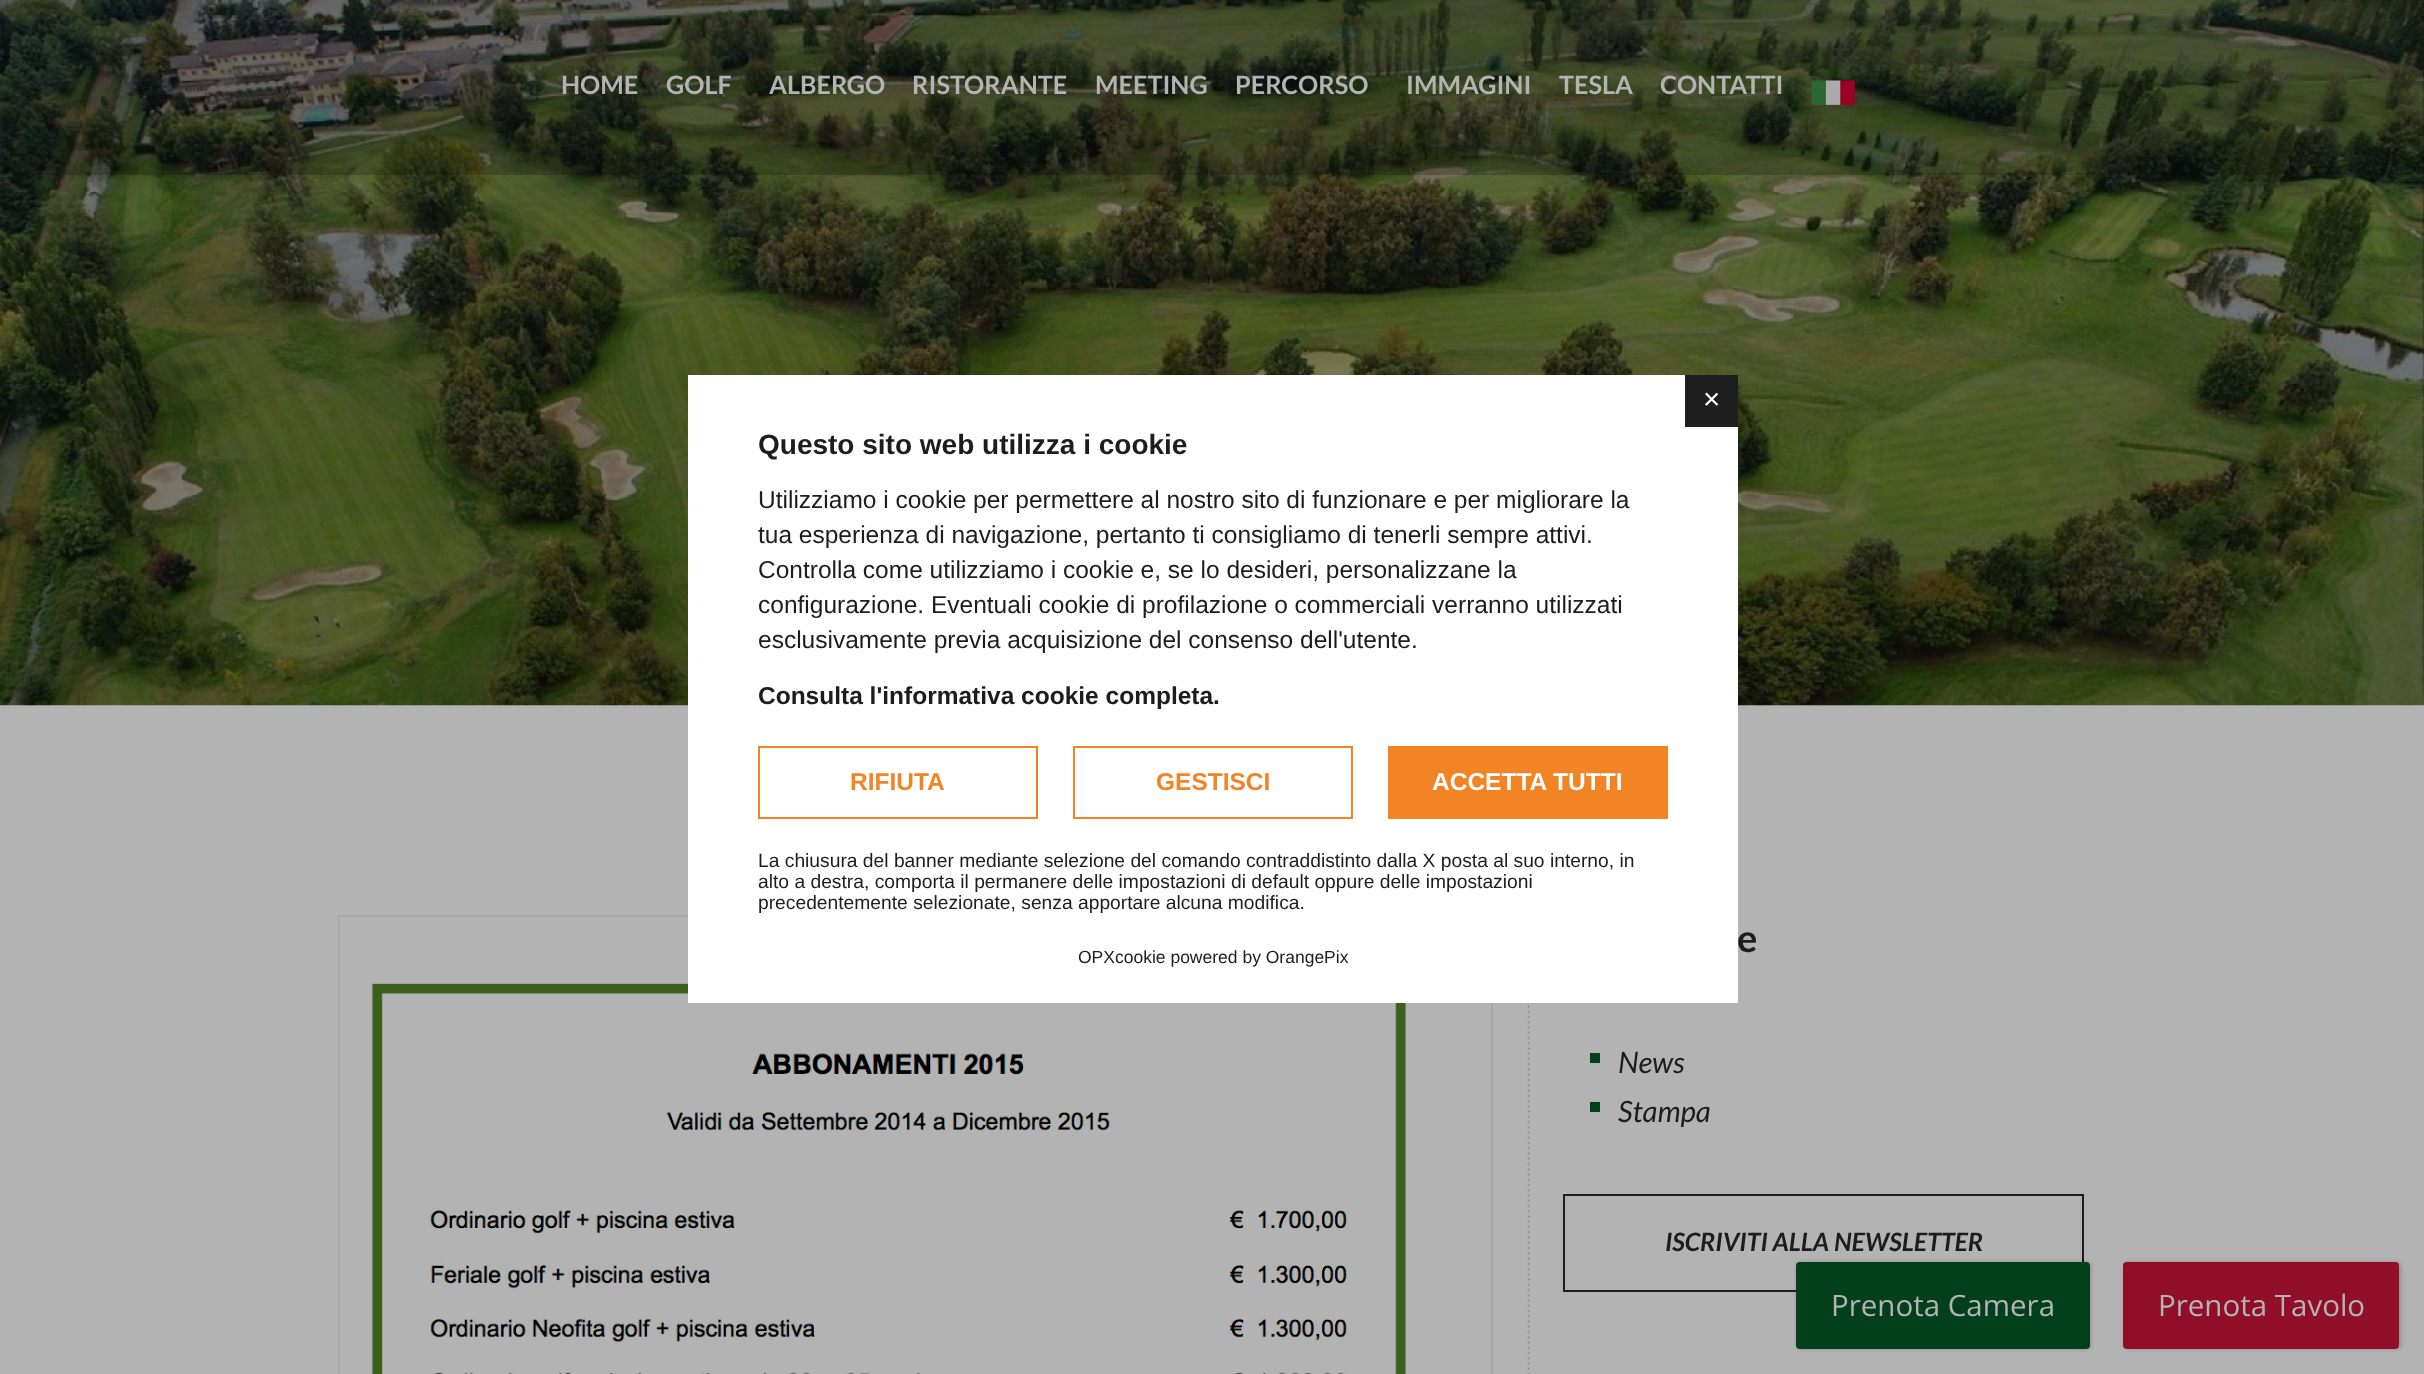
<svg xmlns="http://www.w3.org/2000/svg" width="2424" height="1374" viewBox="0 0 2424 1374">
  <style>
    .t1 { font: bold 25.25px Lato; fill: #b3b3b3; }
    .t2 { font: bold 38px Lato; fill: #1d1d1d; }
    .t3 { font: italic 29.5px Lato; fill: #1d1d1d; }
    .t4 { font: italic bold 25.25px Lato; fill: #1d1d1d; }
    .t5 { font: 29.5px Liberation Sans; fill: #fff; }
    .t6 { font: bold 28px Liberation Sans; fill: #1d1d1d; }
    .t7 { font: 24.5px Liberation Sans; fill: #1d1d1d; }
    .t8 { font: bold 24.5px Liberation Sans; fill: #1d1d1d; }
    .t9 { font: bold 24.5px Liberation Sans; fill: #f38426; }
    .t10 { font: bold 24.5px Liberation Sans; fill: #fff; }
    .t11 { font: 19.25px Liberation Sans; fill: #1d1d1d; }
    .t12 { font: 17.5px Liberation Sans; fill: #1d1d1d; }
    .t13 { font: 29.5px Open Sans; fill: #b3b3b3; }
  </style>
  <rect width="100%" height="100%" fill="#b3b3b3"/>
  <image x="0" y="0" width="2424" height="706" href="images/1.png"/>
  <rect x="0" y="0" width="2424" height="175" fill="#02020233"/>
  <text x="561" y="94" class="t1">HOME</text>
  <text x="666" y="94" class="t1">GOLF</text>
  <text x="769" y="94" class="t1">ALBERGO</text>
  <text x="912" y="94" class="t1">RISTORANTE</text>
  <text x="1095" y="94" class="t1">MEETING</text>
  <text x="1235" y="94" class="t1">PERCORSO</text>
  <text x="1406" y="94" class="t1">IMMAGINI</text>
  <text x="1559" y="94" class="t1">TESLA</text>
  <text x="1660" y="94" class="t1">CONTATTI</text>
  <image x="1811" y="80" width="44" height="26" href="images/2.png"/>
  <image x="1527" y="1005" width="3" height="369" href="images/3.png"/>
  <rect x="339" y="916" width="1153" height="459" fill="none" stroke="#a7a7a7" stroke-width="2"/>
  <image x="339" y="917" width="1067" height="457" href="images/4.png"/>
  <text x="1737" y="952" class="t2">e</text>
  <rect x="1590" y="1053" width="10" height="10" fill="#02401b"/>
  <text x="1618" y="1073" class="t3">News</text>
  <rect x="1590" y="1102" width="10" height="10" fill="#02401b"/>
  <text x="1618" y="1122" class="t3">Stampa</text>
  <rect x="1564" y="1195" width="519" height="96" fill="none" stroke="#1d1d1d" stroke-width="2"/>
  <text x="1665" y="1251" class="t4">ISCRIVITI ALLA NEWSLETTER</text>
  <rect x="688" y="375" width="1050" height="628" fill="#fff"/>
  <rect x="1685" y="375" width="53" height="52" fill="#1e1e1e"/>
  <text x="1703" y="409" class="t5">×</text>
  <text x="758" y="454" class="t6">Questo sito web utilizza i cookie</text>
  <text x="758" y="508" class="t7">Utilizziamo i cookie per permettere al nostro sito di funzionare e per migliorare la</text>
  <text x="758" y="543" class="t7">tua esperienza di navigazione, pertanto ti consigliamo di tenerli sempre attivi.</text>
  <text x="758" y="578" class="t7">Controlla come utilizziamo i cookie e, se lo desideri, personalizzane la</text>
  <text x="758" y="613" class="t7">configurazione. Eventuali cookie di profilazione o commerciali verranno utilizzati</text>
  <text x="758" y="648" class="t7">esclusivamente previa acquisizione del consenso dell'utente.</text>
  <text x="758" y="704" class="t8">Consulta l'informativa cookie completa.</text>
  <rect x="759" y="747" width="278" height="71" fill="none" stroke="#f38426" stroke-width="2"/>
  <text x="850" y="790" class="t9">RIFIUTA</text>
  <rect x="1074" y="747" width="278" height="71" fill="none" stroke="#f38426" stroke-width="2"/>
  <text x="1156" y="790" class="t9">GESTISCI</text>
  <rect x="1388" y="746" width="280" height="73" fill="#f38426"/>
  <text x="1432" y="790" class="t10">ACCETTA TUTTI</text>
  <text x="758" y="867" class="t11">La chiusura del banner mediante selezione del comando contraddistinto dalla X posta al suo interno, in</text>
  <text x="758" y="888" class="t11">alto a destra, comporta il permanere delle impostazioni di default oppure delle impostazioni</text>
  <text x="758" y="909" class="t11">precedentemente selezionate, senza apportare alcuna modifica.</text>
  <text x="1078" y="963" class="t12">OPXcookie powered by OrangePix</text>
  <rect x="1797" y="1262" width="294" height="87" rx="4" fill="#02020233" filter="blur(2px)"/>
  <rect x="1796" y="1262" width="294" height="87" rx="4" fill="#023f1b"/>
  <text x="1831" y="1316" class="t13">Prenota Camera</text>
  <rect x="2125" y="1262" width="276" height="87" rx="4" fill="#02020233" filter="blur(2px)"/>
  <rect x="2123" y="1262" width="276" height="87" rx="4" fill="#910e29"/>
  <text x="2158" y="1316" class="t13">Prenota Tavolo</text>
</svg>
